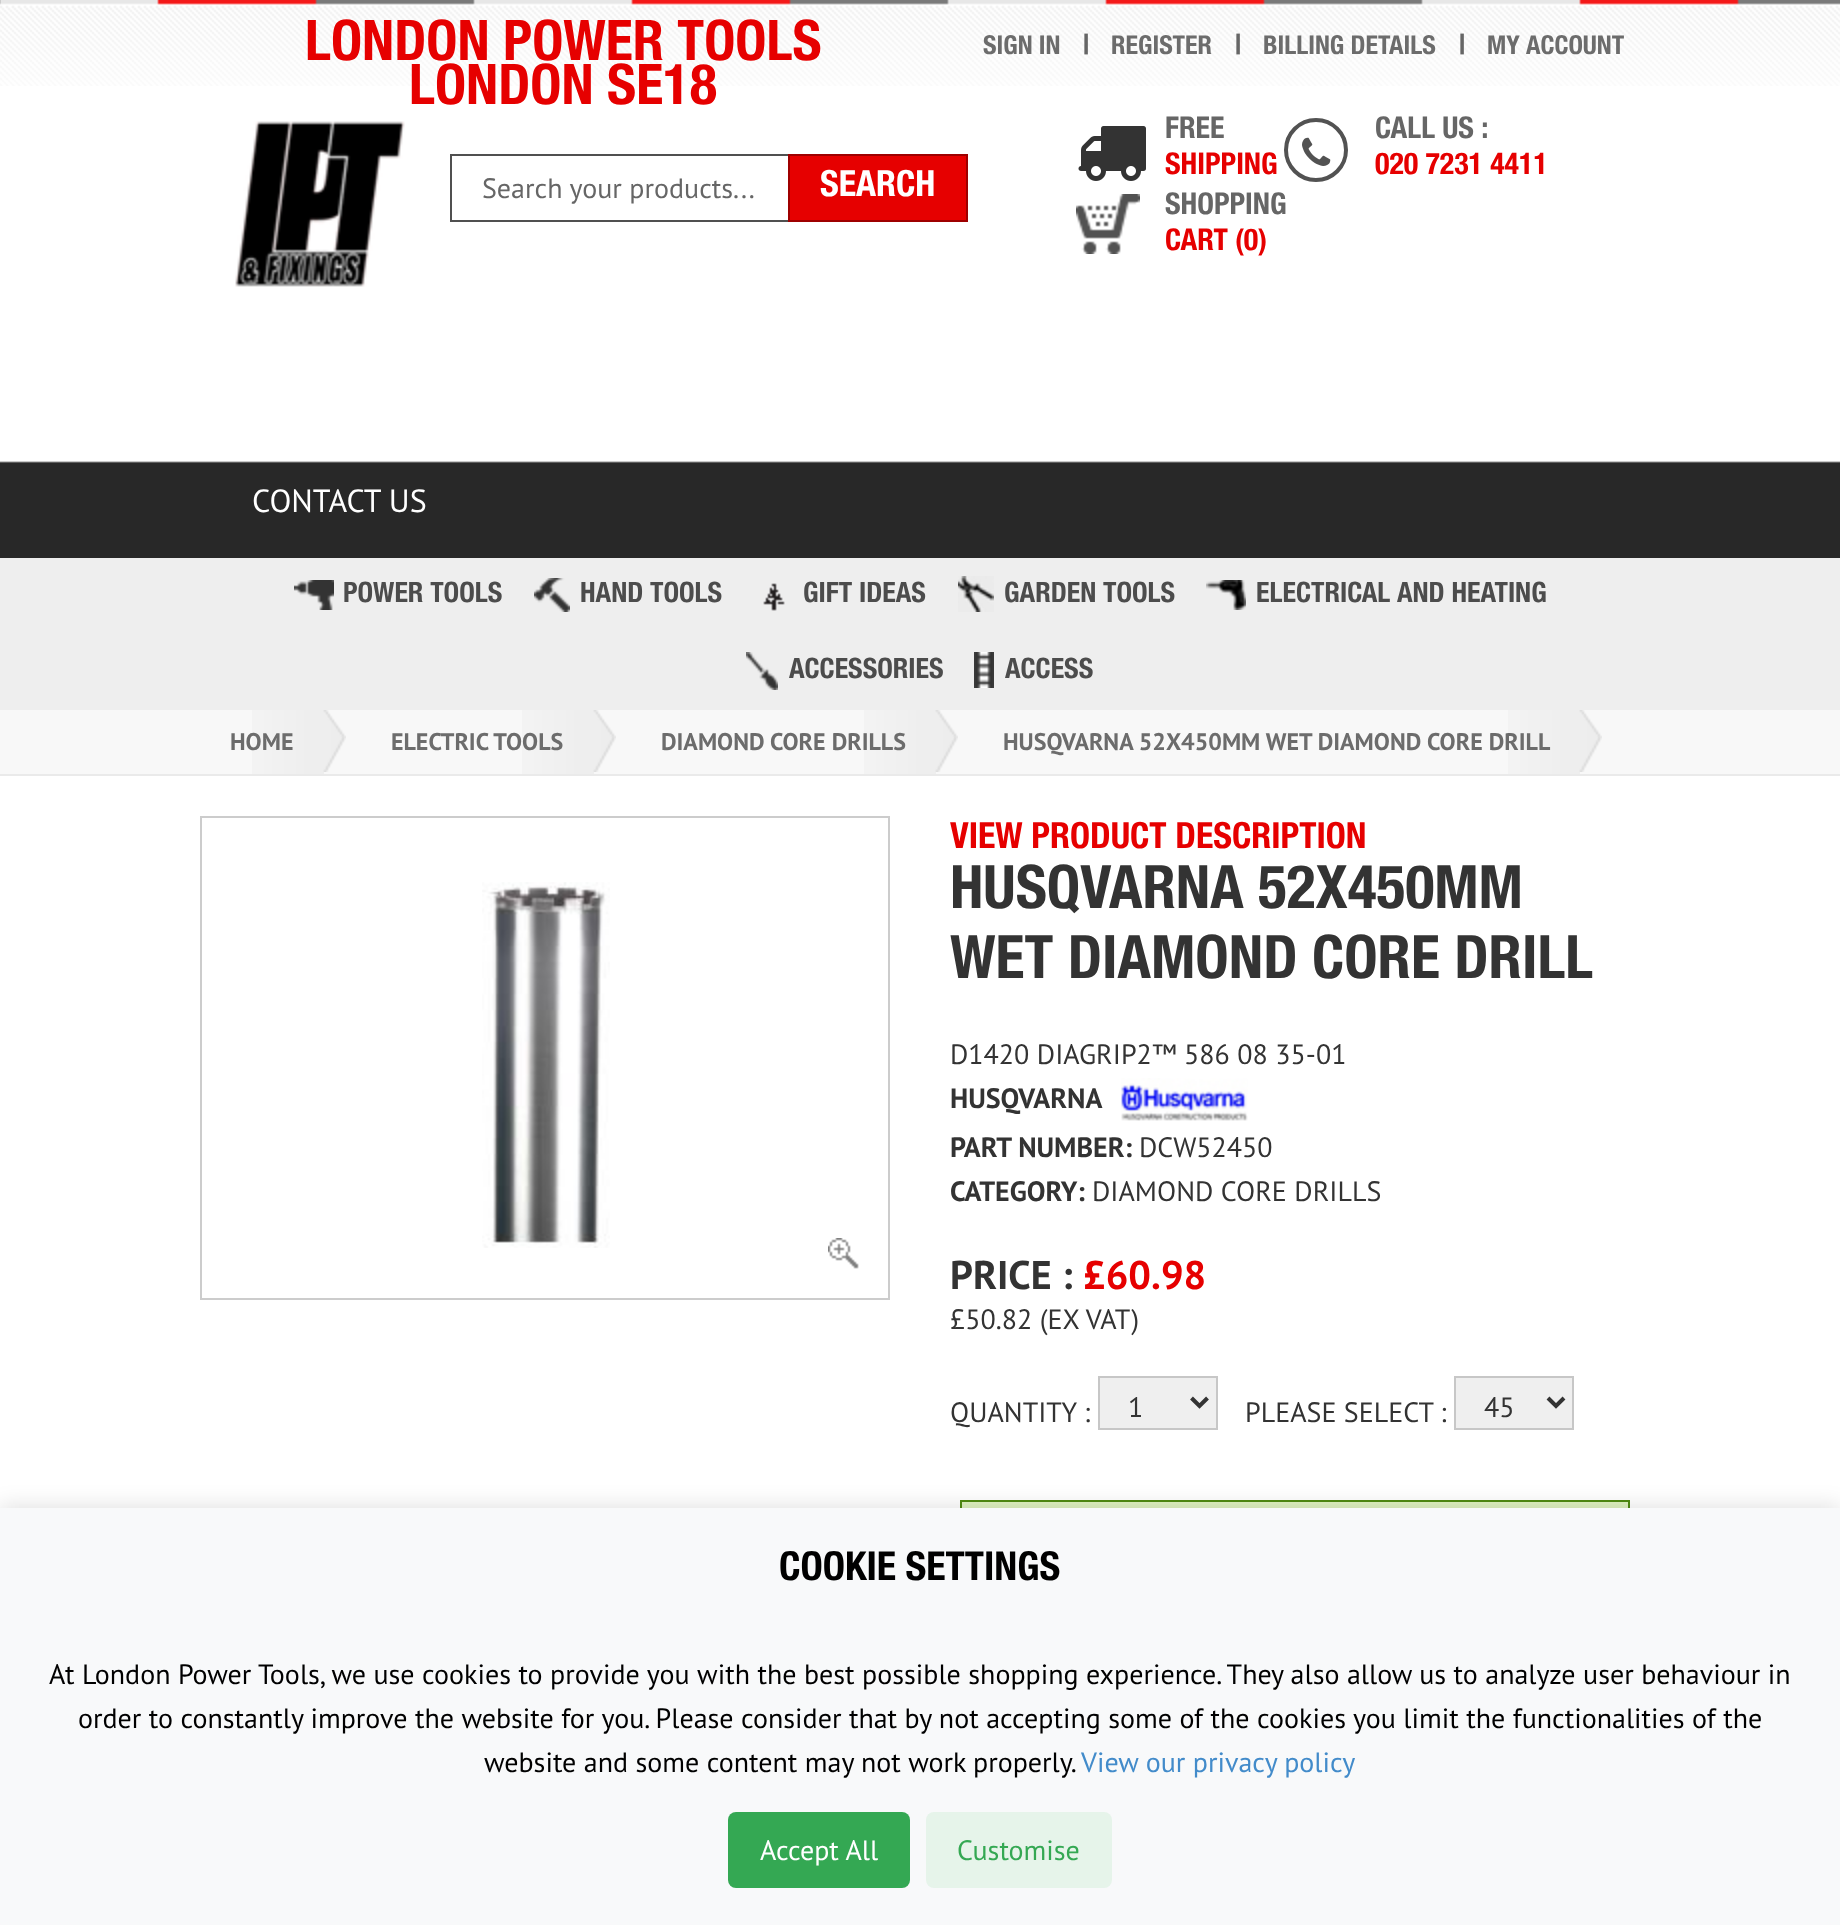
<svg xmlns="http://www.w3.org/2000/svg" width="1840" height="1925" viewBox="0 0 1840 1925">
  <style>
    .t1 { font: bold 56px Helvetica Neue; fill: #e60000; }
    .t2 { font: bold 26px Helvetica Neue; fill: #6c6c6c; }
    .t3 { font: bold 28px Helvetica Neue; fill: #666; }
    .t4 { font: 28px PT Sans; fill: #666; }
    .t5 { font: bold 36px Helvetica Neue; fill: #fff; }
    .t6 { font: bold 30px Helvetica Neue; fill: #666; }
    .t7 { font: bold 30px Helvetica Neue; fill: #e60000; }
    .t8 { font: 32px PT Sans; fill: #fff; }
    .t9 { font: bold 28px Helvetica Neue; fill: #4c4c4c; }
    .t10 { font: bold 24px PT Sans; fill: #6c6c6c; }
    .t11 { font: bold 36px Helvetica Neue; fill: #e60000; }
    .t12 { font: bold 60px Helvetica Neue; fill: #333; }
    .t13 { font: 28px PT Sans; fill: #333; }
    .t14 { font: bold 28px PT Sans; fill: #333; }
    .t15 { font: bold 40px PT Sans; fill: #333; }
    .t16 { font: bold 40px PT Sans; fill: #e60000; }
    .t17 { font: bold 40px Helvetica Neue; fill: #000; }
    .t18 { font: 28px PT Sans; fill: #000; }
    .t19 { font: 28px PT Sans; fill: #428bca; }
    .t20 { font: 28px PT Sans; fill: #fff; }
    .t21 { font: 28px PT Sans; fill: #34a853; }
  </style>
  <rect width="100%" height="100%" fill="#fff"/>
  <image x="0" y="0" width="1840" height="86" href="images/1.png"/>
  <text x="305" y="60" class="t1">LONDON POWER TOOLS</text>
  <text x="409" y="104" class="t1">LONDON SE18</text>
  <text x="983" y="54" class="t2">SIGN IN</text>
  <text x="1083" y="54" class="t3">|</text>
  <text x="1111" y="54" class="t2">REGISTER</text>
  <text x="1235" y="54" class="t3">|</text>
  <text x="1263" y="54" class="t2">BILLING DETAILS</text>
  <text x="1459" y="54" class="t3">|</text>
  <text x="1487" y="54" class="t2">MY ACCOUNT</text>
  <image x="235" y="121" width="170" height="166" href="images/2.png"/>
  <rect x="450" y="154" width="340" height="2" fill="#505050"/>
  <rect x="450" y="220" width="340" height="2" fill="#505050"/>
  <rect x="450" y="154" width="2" height="68" fill="#505050"/>
  <text x="482" y="198" class="t4">Search your products...</text>
  <rect x="789" y="155" width="178" height="66" fill="#e60000" stroke="#9e0000" stroke-width="2"/>
  <text x="820" y="196" class="t5">SEARCH</text>
  <image x="1078" y="126" width="68" height="55" href="images/3.png"/>
  <text x="1165" y="138" class="t6">FREE</text>
  <text x="1165" y="174" class="t7">SHIPPING</text>
  <circle cx="1316" cy="150" r="30" fill="none" stroke="#525252" stroke-width="4"/>
  <image x="1302" y="137" width="29" height="29" href="images/4.png"/>
  <text x="1375" y="138" class="t6">CALL US :</text>
  <text x="1375" y="174" class="t7">020 7231 4411</text>
  <image x="1076" y="194" width="64" height="60" href="images/5.png"/>
  <text x="1165" y="214" class="t6">SHOPPING</text>
  <text x="1165" y="250" class="t7">CART (0)</text>
  <image x="0" y="461" width="1840" height="97" href="images/6.png"/>
  <text x="252" y="512" class="t8">CONTACT US</text>
  <rect x="0" y="558" width="1840" height="152" fill="#eee"/>
  <image x="294" y="580" width="40" height="30" href="images/7.png"/>
  <text x="343" y="602" class="t9">POWER TOOLS</text>
  <image x="534" y="578" width="36" height="34" href="images/8.png"/>
  <text x="580" y="602" class="t9">HAND TOOLS</text>
  <image x="763" y="583" width="22" height="28" href="images/9.png"/>
  <text x="803" y="602" class="t9">GIFT IDEAS</text>
  <image x="958" y="576" width="36" height="36" href="images/10.png"/>
  <text x="1004" y="602" class="t9">GARDEN TOOLS</text>
  <image x="1206" y="580" width="40" height="30" href="images/11.png"/>
  <text x="1256" y="602" class="t9">ELECTRICAL AND HEATING</text>
  <image x="746" y="652" width="32" height="38" href="images/12.png"/>
  <text x="789" y="678" class="t9">ACCESSORIES</text>
  <image x="974" y="652" width="20" height="36" href="images/13.png"/>
  <text x="1005" y="678" class="t9">ACCESS</text>
  <rect x="0" y="710" width="1840" height="64" fill="#f8f8f8"/>
  <rect x="0" y="774" width="1840" height="2" fill="#eaeaea"/>
  <image x="252" y="710" width="72" height="64" href="images/14.png"/>
  <text x="230" y="750" class="t10">HOME</text>
  <image x="323" y="710" width="23" height="62" href="images/15.png"/>
  <image x="522" y="710" width="72" height="64" href="images/14.png"/>
  <text x="391" y="750" class="t10">ELECTRIC TOOLS</text>
  <image x="593" y="710" width="23" height="62" href="images/15.png"/>
  <image x="864" y="710" width="72" height="64" href="images/14.png"/>
  <text x="661" y="750" class="t10">DIAMOND CORE DRILLS</text>
  <image x="935" y="710" width="23" height="62" href="images/15.png"/>
  <image x="1508" y="710" width="72" height="64" href="images/14.png"/>
  <text x="1003" y="750" class="t10">HUSQVARNA 52X450MM WET DIAMOND</text>
  <text x="1427" y="750" class="t10">CORE DRILL</text>
  <image x="1579" y="710" width="23" height="62" href="images/15.png"/>
  <rect x="201" y="817" width="688" height="482" fill="none" stroke="#ccc" stroke-width="2"/>
  <image x="482" y="882" width="128" height="366" href="images/16.png"/>
  <image x="828" y="1238" width="31" height="31" href="images/17.png"/>
  <text x="950" y="848" class="t11">VIEW PRODUCT DESCRIPTION</text>
  <text x="950" y="908" class="t12">HUSQVARNA 52X450MM</text>
  <text x="950" y="978" class="t12">WET DIAMOND CORE DRILL</text>
  <text x="950" y="1064" class="t13">D1420 DIAGRIP2™ 586 08 35-01</text>
  <text x="950" y="1108" class="t14">HUSQVARNA</text>
  <image x="1121" y="1078" width="127" height="43" href="images/18.png"/>
  <text x="950" y="1157" class="t14">PART NUMBER:</text>
  <text x="1139" y="1157" class="t13">DCW52450</text>
  <text x="950" y="1201" class="t14">CATEGORY:</text>
  <text x="1092" y="1201" class="t13">DIAMOND CORE DRILLS</text>
  <text x="950" y="1289" class="t15">PRICE :</text>
  <text x="1083" y="1289" class="t16">£60.98</text>
  <text x="950" y="1329" class="t13">£50.82 (EX VAT)</text>
  <text x="950" y="1422" class="t13">QUANTITY :</text>
  <rect x="1099" y="1377" width="118" height="52" fill="#efefef" stroke="#c7c7c7" stroke-width="2"/>
  <path d="M1191.5 1398L1199.5 1406L1207.5 1398" fill="none" stroke="#333" stroke-width="4"/>
  <text x="1128" y="1417" class="t13">1</text>
  <text x="1245" y="1422" class="t13">PLEASE SELECT :</text>
  <rect x="1455" y="1377" width="118" height="52" fill="#efefef" stroke="#c7c7c7" stroke-width="2"/>
  <path d="M1548 1398L1556 1406L1564 1398" fill="none" stroke="#333" stroke-width="4"/>
  <text x="1484" y="1417" class="t13">45</text>
  <rect x="962" y="1502" width="666" height="6" fill="#dff2bf"/>
  <rect x="961" y="1501" width="668" height="262" fill="none" stroke="#4f8a10" stroke-width="2"/>
  <rect x="0" y="1504" width="1840" height="418" fill="#0000001a" filter="blur(10px)"/>
  <rect x="0" y="1508" width="1840" height="417" fill="#f8f9fa"/>
  <text x="779" y="1580" class="t17">COOKIE SETTINGS</text>
  <text x="49" y="1684" class="t18">At London Power Tools, we use cookies to provide you with the best possible shopping experience. They also allow us to analyze user behaviour in</text>
  <text x="78" y="1728" class="t18">order to constantly improve the website for you. Please consider that by not accepting some of the cookies you limit the functionalities of the</text>
  <text x="484" y="1772" class="t18">website and some content may not work properly.</text>
  <text x="1081" y="1772" class="t19">View our privacy policy</text>
  <rect x="728" y="1812" width="182" height="76" rx="8" fill="#34a853"/>
  <text x="760" y="1860" class="t20">Accept All</text>
  <rect x="926" y="1812" width="186" height="76" rx="8" fill="#e6f4ea"/>
  <text x="957" y="1860" class="t21">Customise</text>
</svg>
